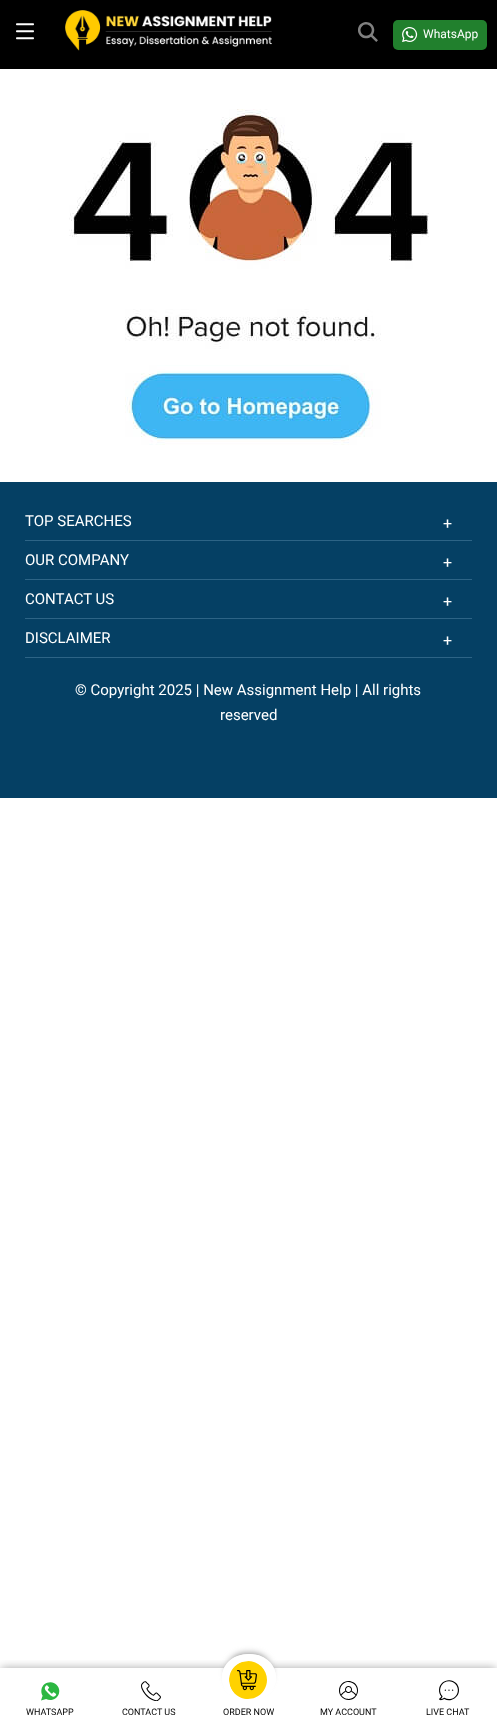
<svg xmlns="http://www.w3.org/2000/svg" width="497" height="1723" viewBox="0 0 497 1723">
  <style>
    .t1 { font: 12px Roboto; fill: #fff; }
    .t2 { font: 15px Roboto; fill: #fff; }
    .t3 { font: 16px Roboto; fill: #fff; }
    .t4 { font: 9px Roboto; fill: #000; }
  </style>
  <defs>
    <clipPath id="clip1"><rect x="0" y="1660" width="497" height="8"/></clipPath>
  </defs>
  <rect width="100%" height="100%" fill="#fff"/>
  <rect x="0" y="0" width="497" height="69" fill="#000"/>
  <image x="16" y="23" width="18" height="17" href="images/1.png"/>
  <image x="65" y="10" width="207" height="41" href="images/2.png"/>
  <image x="358" y="22" width="20" height="20" href="images/3.png"/>
  <rect x="393" y="20" width="94" height="30" rx="5" fill="#21802d"/>
  <image x="402" y="27" width="16" height="15" href="images/4.png"/>
  <text x="423" y="38" class="t1">WhatsApp</text>
  <image x="69" y="109" width="360" height="336" href="images/5.png"/>
  <rect x="0" y="482" width="497" height="316" fill="#054064"/>
  <rect x="25" y="540" width="447" height="1" fill="#2d6486"/>
  <text x="25" y="526" class="t2">TOP SEARCHES</text>
  <text x="443" y="529" class="t3">+</text>
  <rect x="25" y="579" width="447" height="1" fill="#2d6486"/>
  <text x="25" y="565" class="t2">OUR COMPANY</text>
  <text x="443" y="568" class="t3">+</text>
  <rect x="25" y="618" width="447" height="1" fill="#2d6486"/>
  <text x="25" y="604" class="t2">CONTACT US</text>
  <text x="443" y="607" class="t3">+</text>
  <rect x="25" y="657" width="447" height="1" fill="#2d6486"/>
  <text x="25" y="643" class="t2">DISCLAIMER</text>
  <text x="443" y="646" class="t3">+</text>
  <text x="75" y="695" class="t2">© Copyright 2025 | New Assignment Help | All rights</text>
  <text x="220" y="720" class="t2">reserved</text>
  <g clip-path="url(#clip1)">
    <rect x="1" y="1668" width="495" height="53" fill="#00000059" filter="blur(5px)"/>
  </g>
  <image x="41" y="1682" width="19" height="19" href="images/6.png"/>
  <text x="26" y="1715" class="t4">WHATSAPP</text>
  <image x="141" y="1681" width="20" height="20" href="images/7.png"/>
  <text x="122" y="1715" class="t4">CONTACT US</text>
  <rect x="227" y="1654" width="44" height="37" rx="18.5" fill="#797979" filter="blur(3.5px)"/>
  <ellipse cx="249" cy="1677.5" rx="27" ry="23.5" fill="#fff"/>
  <image x="229" y="1661" width="38" height="38" href="images/8.png"/>
  <path d="M249 1654C285 1654 285 1701 249 1701C213 1701 213 1654 249 1654ZM249 1661C279 1661 272 1701 249 1701C226 1701 219 1661 249 1661Z" fill="#fff" fill-rule="evenodd"/>
  <text x="223" y="1715" class="t4">ORDER NOW</text>
  <image x="339" y="1681" width="19" height="19" href="images/9.png"/>
  <text x="320" y="1715" class="t4">MY ACCOUNT</text>
  <image x="439" y="1680" width="20" height="21" href="images/10.png"/>
  <text x="426" y="1715" class="t4">LIVE CHAT</text>
</svg>
